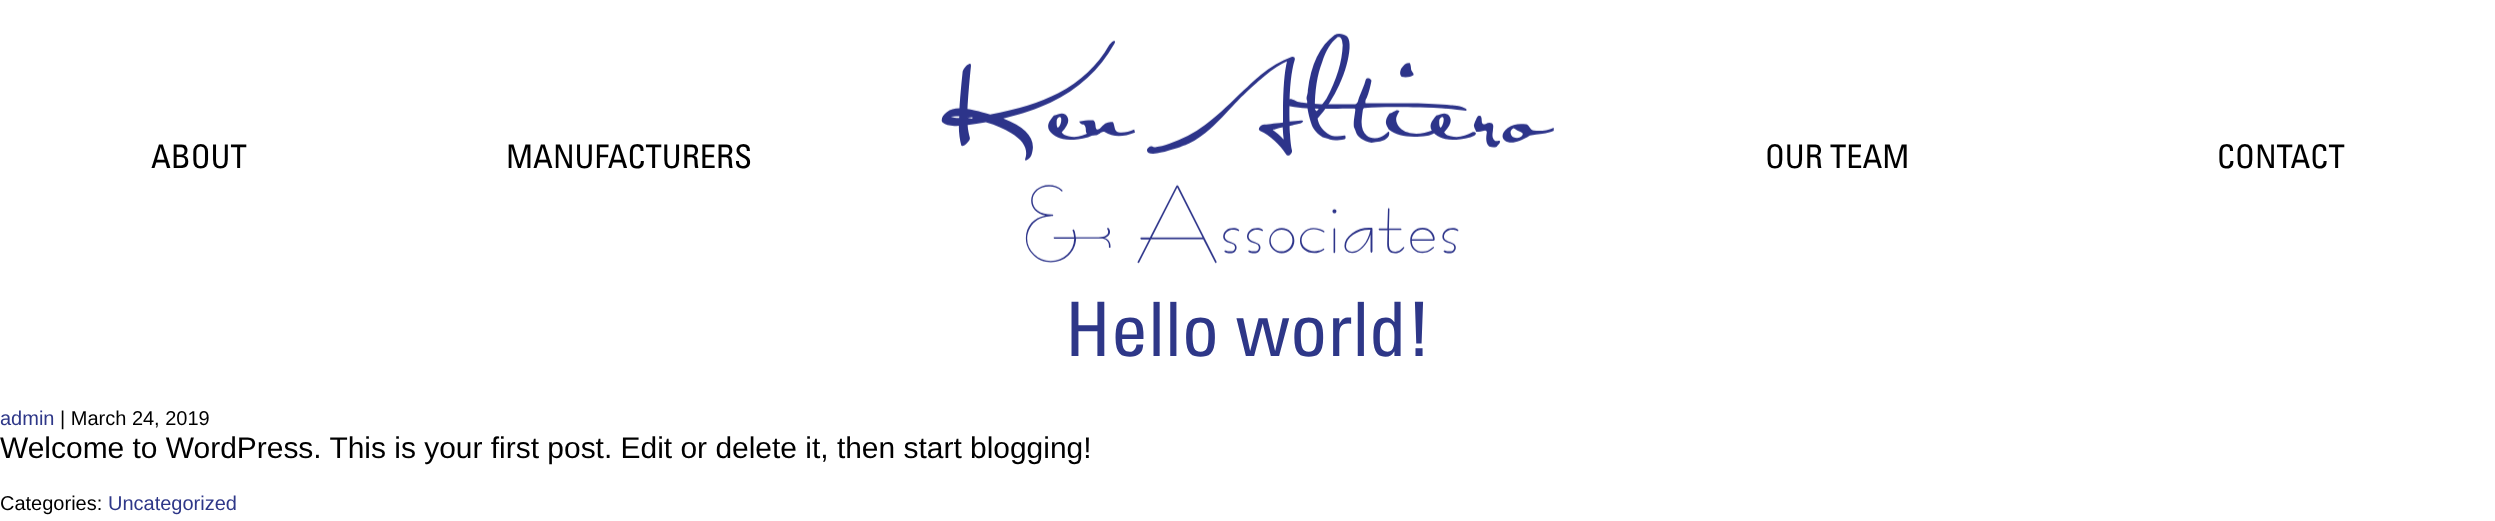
<svg xmlns="http://www.w3.org/2000/svg" width="2495" height="521" viewBox="0 0 2495 521">
  <style>
    .t1 { font: 32.5px 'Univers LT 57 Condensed'; fill: #000; }
    .t2 { font: 75px 'Univers LT 57 Condensed'; fill: #2e3788; }
    .t3 { font: 20px Liberation Sans; fill: #2e3788; }
    .t4 { font: 20px Liberation Sans; fill: #000; }
    .t5 { font: 29.95px Liberation Sans; fill: #000; }
  </style>
  <rect width="100%" height="100%" fill="#fff"/>
  <text x="151" y="168" class="t1">ABOUT</text>
  <text x="506" y="168" class="t1">MANUFACTURERS</text>
  <image x="941" y="33" width="613" height="231" href="images/1.png"/>
  <text x="1765" y="168" class="t1">OUR TEAM</text>
  <text x="2217" y="168" class="t1">CONTACT</text>
  <text x="1065" y="356" class="t2">Hello world!</text>
  <text x="0" y="425" class="t3">admin</text>
  <text x="60" y="425" class="t4">| March 24, 2019</text>
  <text x="0" y="458" class="t5">Welcome to WordPress. This is your first post. Edit or delete it, then start blogging!</text>
  <text x="0" y="510" class="t4">Categories:</text>
  <text x="108" y="510" class="t3">Uncategorized</text>
</svg>
